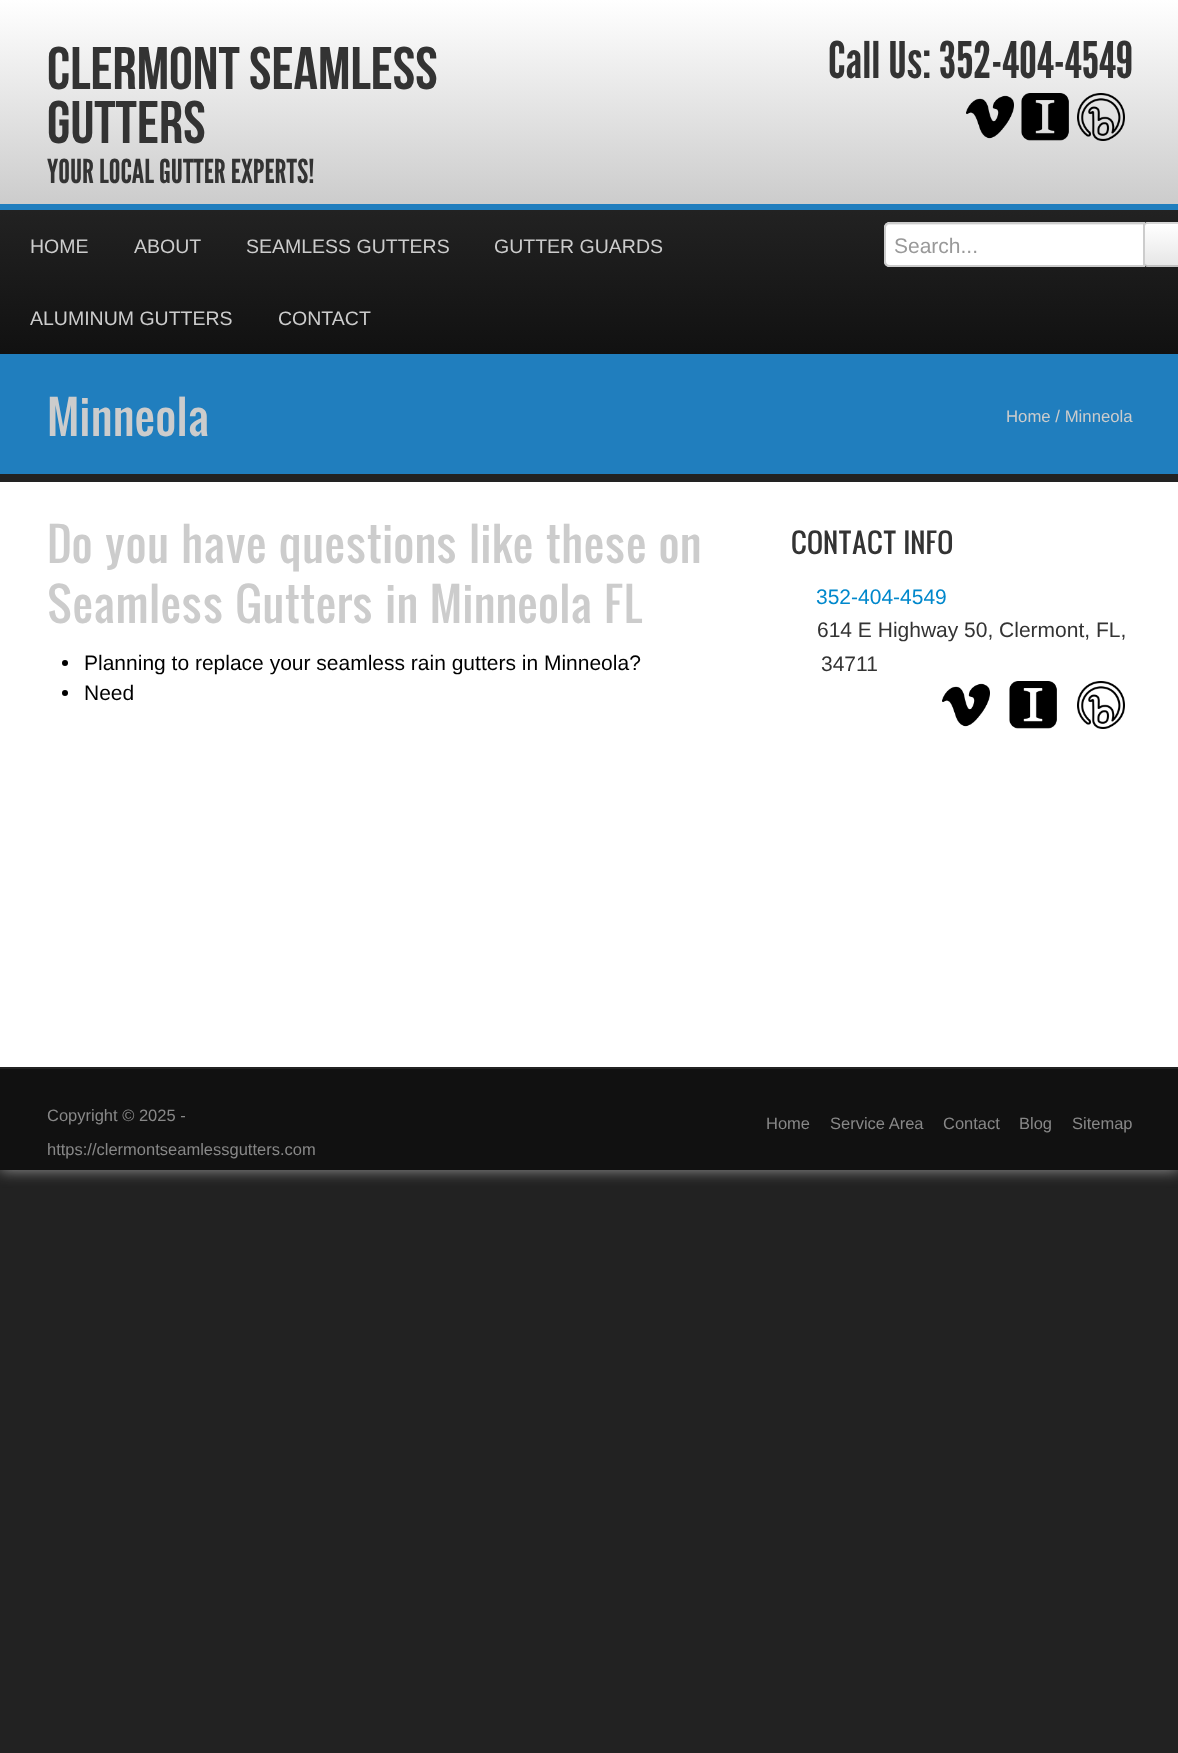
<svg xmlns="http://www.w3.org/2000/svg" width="1178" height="1753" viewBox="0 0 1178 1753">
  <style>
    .t1 { font: 60px Bebas Neue; fill: #333; }
    .t2 { font: 33px League Gothic; fill: #333; }
    .t3 { font: 50.5px League Gothic; fill: #333; }
    .t4 { font: 19.5px Liberation Sans; fill: #ccc; }
    .t5 { font: 21px Liberation Sans; fill: #999; }
    .t6 { font: 45px Oswald; fill: #ccc; }
    .t7 { font: 16.75px Liberation Sans; fill: #ccc; }
    .t8 { font: 21px Liberation Sans; fill: #000; }
    .t9 { font: 27px Oswald; fill: #333; }
    .t10 { font: 21px Liberation Sans; fill: #08c; }
    .t11 { font: 21px Liberation Sans; fill: #333; }
    .t12 { font: 16.5px Liberation Sans; fill: #888; }
  </style>
  <defs>
    <linearGradient id="g1" gradientUnits="userSpaceOnUse" x1="590" y1="0" x2="590" y2="204"><stop offset="0" stop-color="#fff"/><stop offset="1" stop-color="#ccc"/></linearGradient>
    <linearGradient id="g2" gradientUnits="userSpaceOnUse" x1="590" y1="210" x2="590" y2="354"><stop offset="0" stop-color="#222"/><stop offset="1" stop-color="#111"/></linearGradient>
    <linearGradient id="g3" gradientUnits="userSpaceOnUse" x1="1173" y1="224" x2="1173" y2="266"><stop offset="0" stop-color="#fff"/><stop offset="1" stop-color="#e6e6e6"/></linearGradient>
  </defs>
  <rect width="100%" height="100%" fill="#222"/>
  <rect x="0" y="0" width="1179" height="1170" fill="#999" filter="blur(7.5px)"/>
  <rect x="0" y="482" width="1178" height="585" fill="#fff"/>
  <rect x="0" y="0" width="1178" height="204" fill="url(#g1)"/>
  <text x="47" y="89" class="t1">CLERMONT SEAMLESS</text>
  <text x="47" y="143" class="t1">GUTTERS</text>
  <text x="47" y="183" class="t2">YOUR LOCAL GUTTER EXPERTS!</text>
  <text x="828" y="78" class="t3">Call Us: 352-404-4549</text>
  <image x="966" y="95" width="48" height="44" href="images/1.png"/>
  <image x="1021" y="93" width="48" height="48" href="images/2.png"/>
  <image x="1077" y="93" width="48" height="48" href="images/3.png"/>
  <rect x="0" y="210" width="1178" height="144" fill="url(#g2)"/>
  <rect x="0" y="204" width="1178" height="6" fill="#207ebe"/>
  <text x="30" y="253" class="t4">HOME</text>
  <text x="134" y="253" class="t4">ABOUT</text>
  <text x="246" y="253" class="t4">SEAMLESS GUTTERS</text>
  <text x="494" y="253" class="t4">GUTTER GUARDS</text>
  <text x="30" y="325" class="t4">ALUMINUM GUTTERS</text>
  <text x="278" y="325" class="t4">CONTACT</text>
  <rect x="1143" y="222" width="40" height="45" rx="5" fill="#f5f5f5"/>
  <rect x="1145" y="224" width="33" height="42" fill="url(#g3)"/>
  <path d="M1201 265L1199 266H1147L1145 265" fill="none" stroke="#b3b3b3" stroke-width="1.5"/>
  <path d="M1145 265C1143 263 1144 258.5 1144 256.5V232.5C1144 221 1144 223 1156 223H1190C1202 223 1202 221 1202 232.5V256.5C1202 258.5 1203 263 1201 265" fill="none" stroke="#ccc" stroke-width="1.5"/>
  <path d="M890 222H1145V267H890C886.5 267 884 264.5 884 261V228C884 224.5 886.5 222 890 222Z" fill="#fff"/>
  <path d="M890 225H1143V224H890C887 224 885 227 885 230C885 227 887 225 890 225Z" fill="#ececec"/>
  <path d="M890 223H1144V266H890C887 266 885 264 885 261V228C885 225 887 223 890 223Z" fill="none" stroke="#ccc" stroke-width="2"/>
  <text x="894" y="253" class="t5">Search...</text>
  <rect x="0" y="354" width="1178" height="120" fill="#207ebe"/>
  <rect x="0" y="474" width="1178" height="8" fill="#222"/>
  <text x="47" y="436" class="t6">Minneola</text>
  <text x="1006" y="422" class="t7">Home / Minneola</text>
  <text x="47" y="563" class="t6">Do you have questions like these on</text>
  <text x="47" y="623" class="t6">Seamless Gutters in Minneola FL</text>
  <circle cx="65" cy="663" r="3" fill="#000"/>
  <text x="84" y="670" class="t8">Planning to replace your seamless rain gutters in Minneola?</text>
  <circle cx="65" cy="693" r="3" fill="#000"/>
  <text x="84" y="700" class="t8">Need</text>
  <text x="791" y="554" class="t9">CONTACT INFO</text>
  <text x="816" y="604" class="t10">352-404-4549</text>
  <text x="817" y="637" class="t11">614 E Highway 50, Clermont, FL,</text>
  <text x="821" y="671" class="t11">34711</text>
  <image x="942" y="683" width="48" height="44" href="images/4.png"/>
  <image x="1009" y="681" width="48" height="48" href="images/5.png"/>
  <image x="1077" y="681" width="48" height="48" href="images/6.png"/>
  <rect x="0" y="1069" width="1178" height="101" fill="#111"/>
  <rect x="0" y="1067" width="1178" height="2" fill="#222"/>
  <text x="47" y="1121" class="t12">Copyright © 2025 -</text>
  <text x="47" y="1155" class="t12">https://clermontseamlessgutters.com</text>
  <text x="766" y="1129" class="t12">Home</text>
  <text x="830" y="1129" class="t12">Service Area</text>
  <text x="943" y="1129" class="t12">Contact</text>
  <text x="1019" y="1129" class="t12">Blog</text>
  <text x="1072" y="1129" class="t12">Sitemap</text>
</svg>
